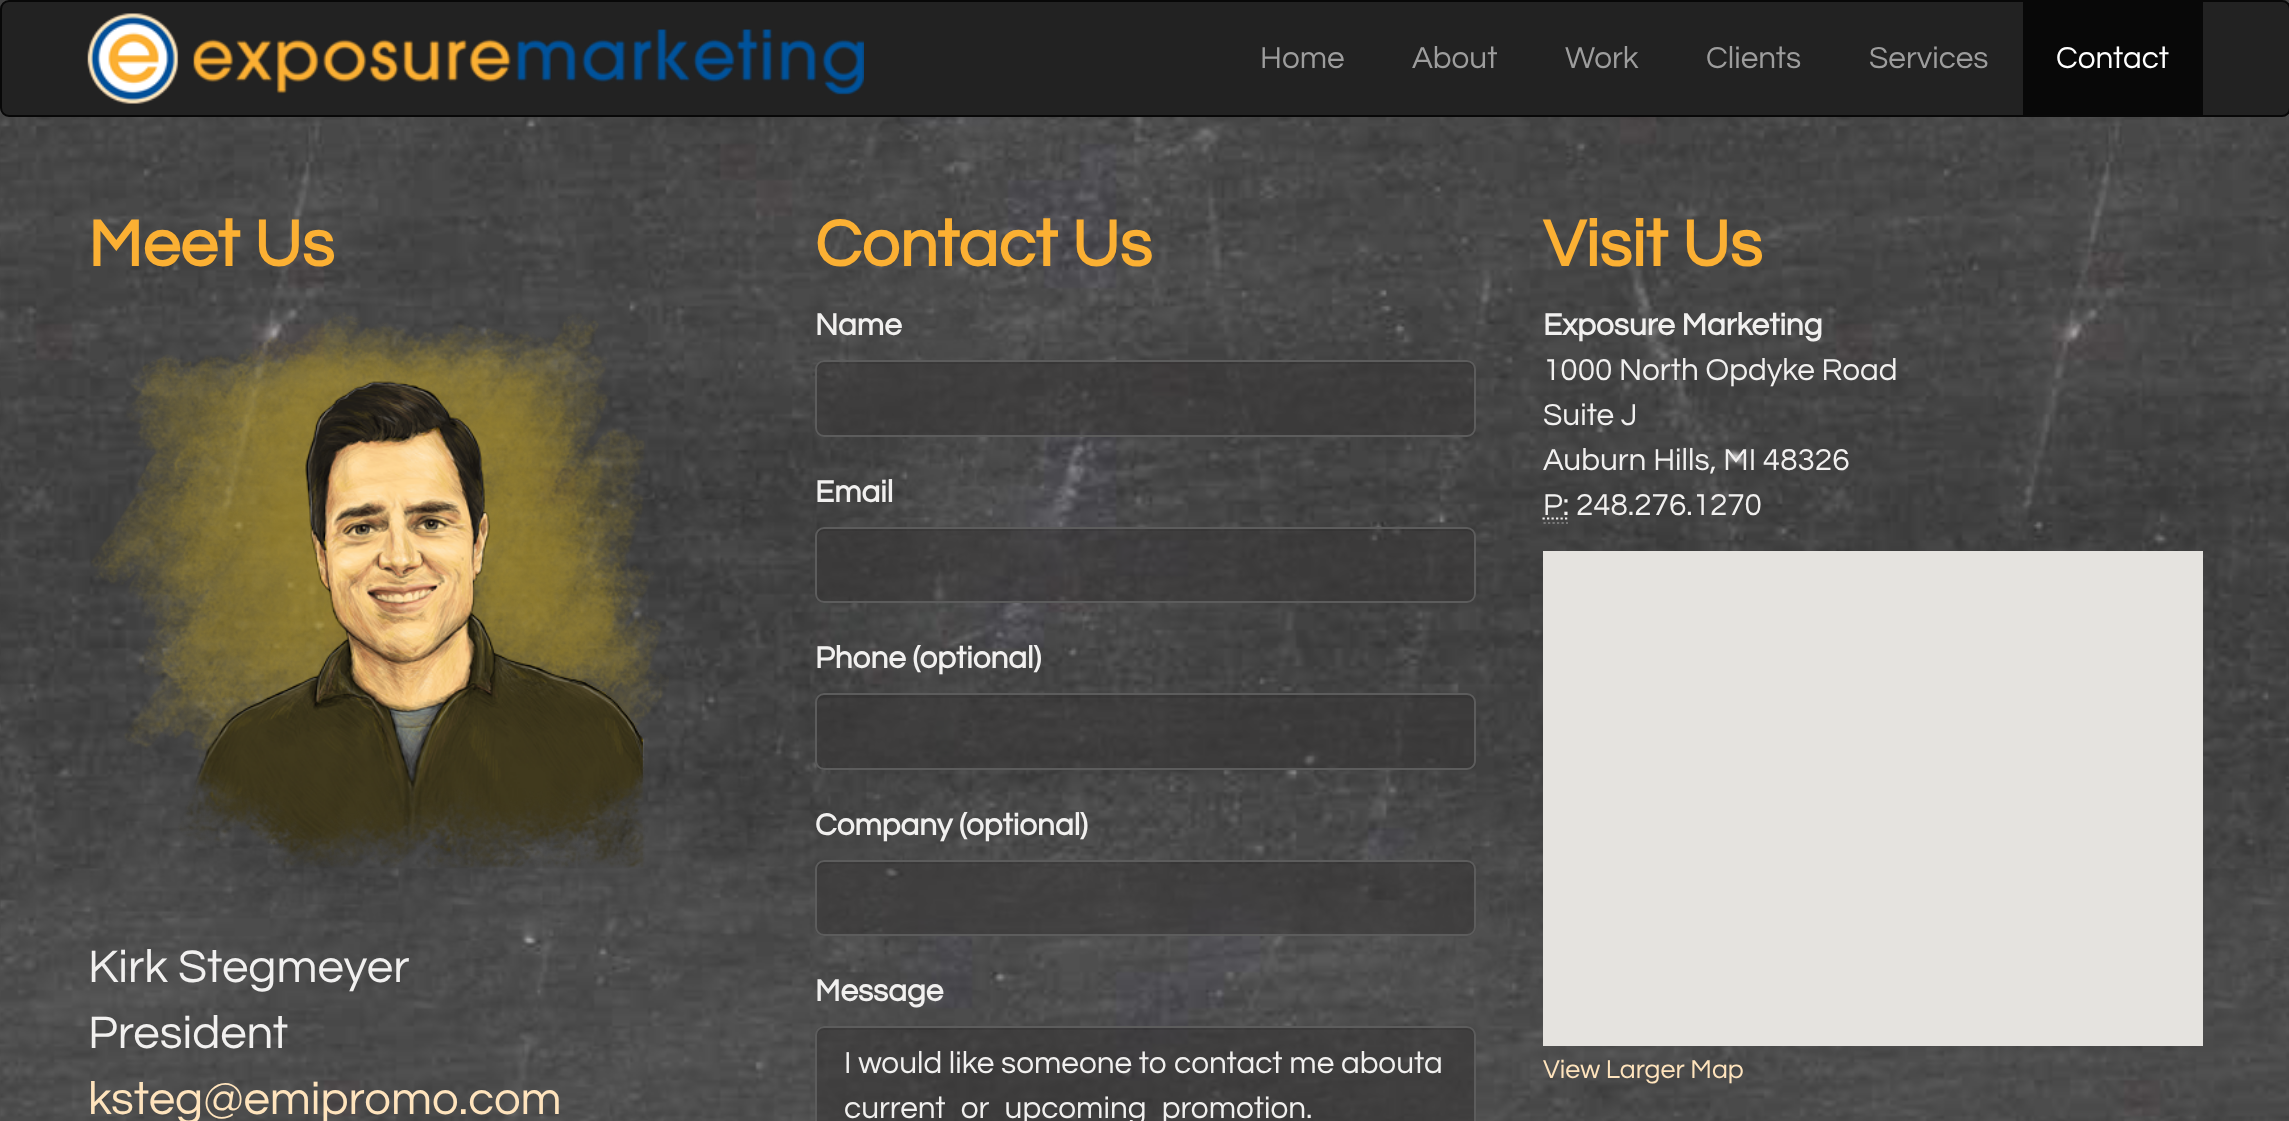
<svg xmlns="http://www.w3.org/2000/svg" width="2289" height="1121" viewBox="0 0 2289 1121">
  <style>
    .t1 { font: 31.5px Questrial; fill: #9d9d9d; }
    .t2 { font: 31.5px Questrial; fill: #fff; }
    .t3 { font: bold 67.5px Questrial; fill: #fbb033; }
    .t4 { font: 47.25px Questrial; fill: #f1f0ef; }
    .t5 { font: 47.25px Questrial; fill: #ffe4bd; }
    .t6 { font: bold 31.5px Questrial; fill: #f1f0ef; }
    .t7 { font: 31.5px Questrial; fill: #f1f0ef; }
    .t8 { font: 26.75px Questrial; fill: #ffe4bd; }
  </style>
  <rect width="100%" height="100%" fill="#fff"/>
  <image x="0" y="0" width="2289" height="1121" href="images/1.png"/>
  <rect x="1" y="1" width="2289" height="115" rx="8" fill="#222" stroke="#080808" stroke-width="2"/>
  <image x="87" y="13" width="777" height="91" href="images/2.png"/>
  <text x="1260" y="68" class="t1">Home</text>
  <text x="1412" y="68" class="t1">About</text>
  <text x="1565" y="68" class="t1">Work</text>
  <text x="1706" y="68" class="t1">Clients</text>
  <text x="1869" y="68" class="t1">Services</text>
  <rect x="2023" y="2" width="180" height="113" fill="#080808"/>
  <text x="2056" y="68" class="t2">Contact</text>
  <text x="88" y="266" class="t3">Meet Us</text>
  <image x="91" y="312" width="578" height="556" href="images/3.png"/>
  <text x="88" y="982" class="t4">Kirk Stegmeyer</text>
  <text x="88" y="1048" class="t4">President</text>
  <text x="88" y="1114" class="t5">ksteg@emipromo.com</text>
  <text x="815" y="266" class="t3">Contact Us</text>
  <text x="815" y="335" class="t6">Name</text>
  <rect x="815" y="360" width="661" height="77" rx="9" fill="#3634358c"/>
  <path d="M824 364H1467C1471 364 1474 368 1474 371V369C1474 365 1471 362 1467 362H824C820 362 817 365 817 369V371C817 368 820 364 824 364Z" fill="#00000012"/>
  <rect x="816" y="361" width="659" height="75" rx="8" fill="none" stroke="#5c5c5c" stroke-width="2"/>
  <text x="815" y="502" class="t6">Email</text>
  <rect x="815" y="527" width="661" height="76" rx="9" fill="#3634358c"/>
  <path d="M824 531H1467C1471 531 1474 534 1474 538V536C1474 532 1471 529 1467 529H824C820 529 817 532 817 536V538C817 534 820 531 824 531Z" fill="#00000012"/>
  <rect x="816" y="528" width="659" height="74" rx="8" fill="none" stroke="#5c5c5c" stroke-width="2"/>
  <text x="815" y="668" class="t6">Phone (optional)</text>
  <rect x="815" y="693" width="661" height="77" rx="9" fill="#3634358c"/>
  <path d="M824 698H1467C1471 698 1474 701 1474 704V702C1474 698 1471 695 1467 695H824C820 695 817 698 817 702V704C817 701 820 698 824 698Z" fill="#00000012"/>
  <rect x="816" y="694" width="659" height="75" rx="8" fill="none" stroke="#5c5c5c" stroke-width="2"/>
  <text x="815" y="835" class="t6">Company (optional)</text>
  <rect x="815" y="860" width="661" height="76" rx="9" fill="#3634358c"/>
  <path d="M824 864H1467C1471 864 1474 867 1474 871V869C1474 865 1471 862 1467 862H824C820 862 817 865 817 869V871C817 867 820 864 824 864Z" fill="#00000012"/>
  <rect x="816" y="861" width="659" height="74" rx="8" fill="none" stroke="#5c5c5c" stroke-width="2"/>
  <text x="815" y="1001" class="t6">Message</text>
  <rect x="815" y="1026" width="661" height="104" rx="9" fill="#3634358c"/>
  <path d="M824 1030H1467C1471 1030 1474 1034 1474 1037V1035C1474 1031 1471 1028 1467 1028H824C820 1028 817 1031 817 1035V1037C817 1034 820 1030 824 1030Z" fill="#00000012"/>
  <rect x="816" y="1027" width="659" height="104" rx="8" fill="none" stroke="#5c5c5c" stroke-width="2"/>
  <text x="844" y="1073" class="t7">I would like someone to contact me abouta</text>
  <text x="844" y="1118" word-spacing="8.5" class="t7">current or upcoming promotion.</text>
  <text x="1543" y="266" class="t3">Visit Us</text>
  <text x="1543" y="335" class="t6">Exposure Marketing</text>
  <text x="1543" y="380" class="t7">1000 North Opdyke Road</text>
  <text x="1543" y="425" class="t7">Suite J</text>
  <text x="1543" y="470" class="t7">Auburn Hills, MI 48326</text>
  <text x="1543" y="515" class="t7">P: 248.276.1270</text>
  <path d="M1543.5 523H1568" fill="none" stroke="#777" stroke-width="2.2" stroke-dasharray="2.25 2.25"/>
  <path d="M1542.5 518.5H1569" fill="none" stroke="#f1f0ef" stroke-width="2.2" stroke-dasharray="2.25 2.25"/>
  <rect x="1543" y="551" width="660" height="495" fill="#e5e3df"/>
  <text x="1543" y="1078" class="t8">View Larger Map</text>
</svg>
